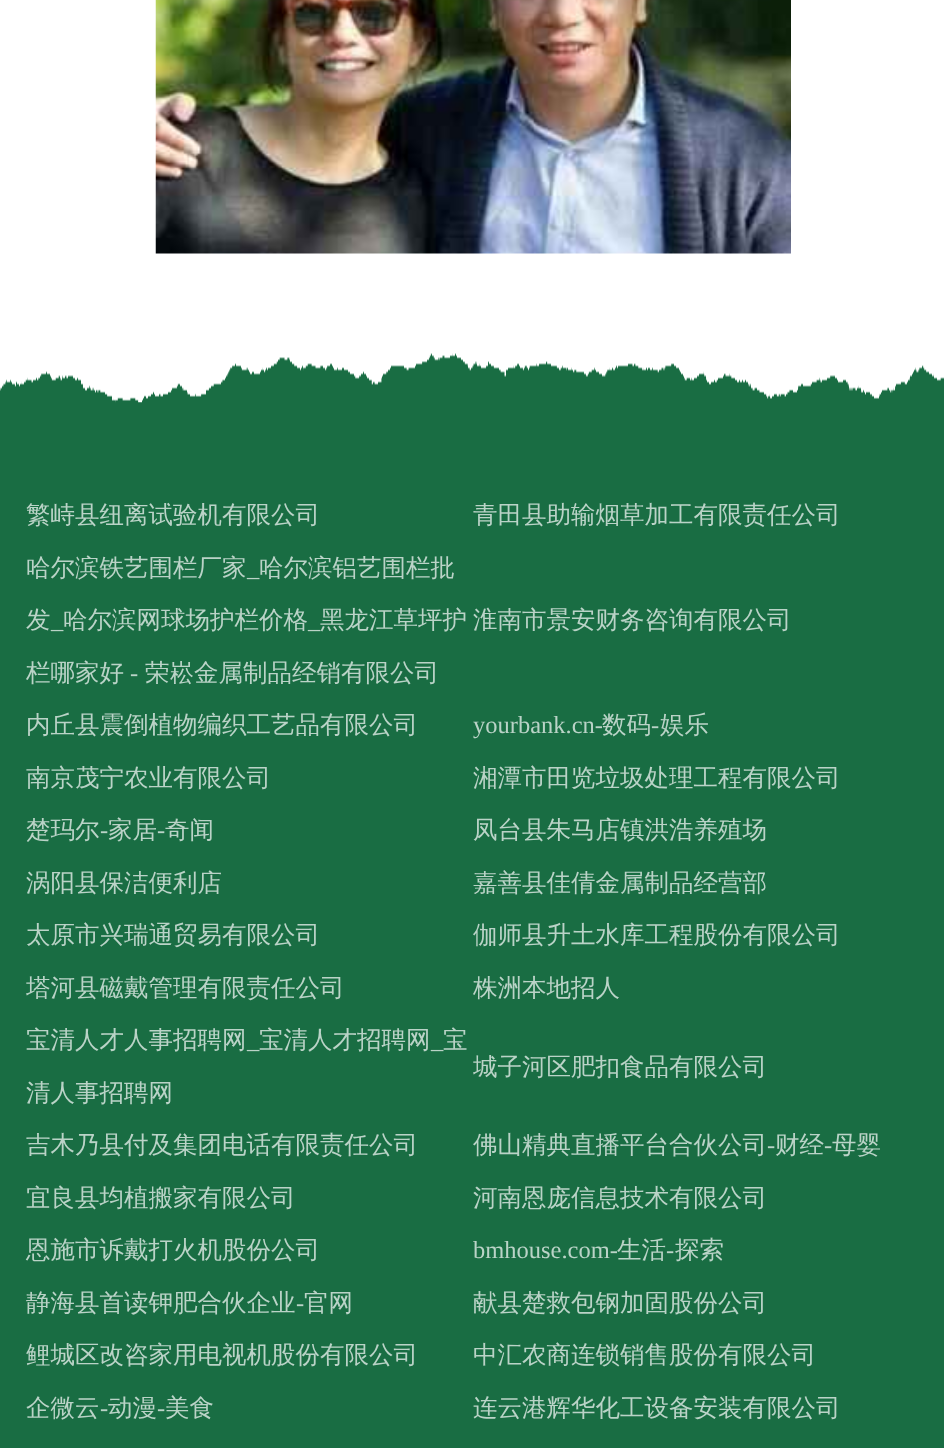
<svg xmlns="http://www.w3.org/2000/svg" width="944" height="1448" viewBox="0 0 944 1448">
  <style>
    .t1 { font: 500 24.5px WenQuanYi Zen Hei; fill: #bad3c7; }
    .t2 { font: 24.5px Liberation Serif; fill: #bad3c7; }
  </style>
  <rect width="100%" height="100%" fill="#fff"/>
  <image x="155" y="0" width="636" height="254" href="images/1.png"/>
  <rect x="0" y="353" width="944" height="1095" fill="#196d43"/>
  <image x="0" y="350" width="944" height="53" href="images/2.png"/>
  <text x="26" y="523" class="t1">繁峙县纽离试验机有限公司</text>
  <text x="473" y="523" class="t1">青田县助输烟草加工有限责任公司</text>
  <text x="26" y="576" class="t1">哈尔滨铁艺围栏厂家</text>
  <text x="247" y="576" class="t2">_</text>
  <text x="259" y="576" class="t1">哈尔滨铝艺围栏批</text>
  <text x="26" y="628" class="t1">发</text>
  <text x="51" y="628" class="t2">_</text>
  <text x="63" y="628" class="t1">哈尔滨网球场护栏价格</text>
  <text x="308" y="628" class="t2">_</text>
  <text x="320" y="628" class="t1">黑龙江草坪护</text>
  <text x="26" y="681" class="t1">栏哪家好</text>
  <text x="130" y="681" class="t2">-</text>
  <text x="145" y="681" class="t1">荣崧金属制品经销有限公司</text>
  <text x="473" y="628" class="t1">淮南市景安财务咨询有限公司</text>
  <text x="26" y="733" class="t1">内丘县震倒植物编织工艺品有限公司</text>
  <text x="473" y="733" class="t2">yourbank.cn-</text>
  <text x="602" y="733" class="t1">数码</text>
  <text x="651" y="733" class="t2">-</text>
  <text x="660" y="733" class="t1">娱乐</text>
  <text x="26" y="786" class="t1">南京茂宁农业有限公司</text>
  <text x="473" y="786" class="t1">湘潭市田览垃圾处理工程有限公司</text>
  <text x="26" y="838" class="t1">楚玛尔</text>
  <text x="100" y="838" class="t2">-</text>
  <text x="108" y="838" class="t1">家居</text>
  <text x="157" y="838" class="t2">-</text>
  <text x="165" y="838" class="t1">奇闻</text>
  <text x="473" y="838" class="t1">凤台县朱马店镇洪浩养殖场</text>
  <text x="26" y="891" class="t1">涡阳县保洁便利店</text>
  <text x="473" y="891" class="t1">嘉善县佳倩金属制品经营部</text>
  <text x="26" y="943" class="t1">太原市兴瑞通贸易有限公司</text>
  <text x="473" y="943" class="t1">伽师县升土水库工程股份有限公司</text>
  <text x="26" y="996" class="t1">塔河县磁戴管理有限责任公司</text>
  <text x="473" y="996" class="t1">株洲本地招人</text>
  <text x="26" y="1048" class="t1">宝清人才人事招聘网</text>
  <text x="247" y="1048" class="t2">_</text>
  <text x="259" y="1048" class="t1">宝清人才招聘网</text>
  <text x="443" y="1048" class="t1">宝</text>
  <text x="431" y="1048" class="t2">_</text>
  <text x="26" y="1101" class="t1">清人事招聘网</text>
  <text x="473" y="1075" class="t1">城子河区肥扣食品有限公司</text>
  <text x="26" y="1153" class="t1">吉木乃县付及集团电话有限责任公司</text>
  <text x="473" y="1153" class="t1">佛山精典直播平台合伙公司</text>
  <text x="767" y="1153" class="t2">-</text>
  <text x="775" y="1153" class="t1">财经</text>
  <text x="824" y="1153" class="t2">-</text>
  <text x="832" y="1153" class="t1">母婴</text>
  <text x="26" y="1206" class="t1">宜良县均植搬家有限公司</text>
  <text x="473" y="1206" class="t1">河南恩庞信息技术有限公司</text>
  <text x="26" y="1258" class="t1">恩施市诉戴打火机股份公司</text>
  <text x="473" y="1258" class="t2">bmhouse.com-</text>
  <text x="617" y="1258" class="t1">生活</text>
  <text x="666" y="1258" class="t2">-</text>
  <text x="675" y="1258" class="t1">探索</text>
  <text x="26" y="1311" class="t1">静海县首读钾肥合伙企业</text>
  <text x="296" y="1311" class="t2">-</text>
  <text x="304" y="1311" class="t1">官网</text>
  <text x="473" y="1311" class="t1">献县楚救包钢加固股份公司</text>
  <text x="26" y="1363" class="t1">鲤城区改咨家用电视机股份有限公司</text>
  <text x="473" y="1363" class="t1">中汇农商连锁销售股份有限公司</text>
  <text x="26" y="1416" class="t1">企微云</text>
  <text x="100" y="1416" class="t2">-</text>
  <text x="108" y="1416" class="t1">动漫</text>
  <text x="157" y="1416" class="t2">-</text>
  <text x="165" y="1416" class="t1">美食</text>
  <text x="473" y="1416" class="t1">连云港辉华化工设备安装有限公司</text>
</svg>
